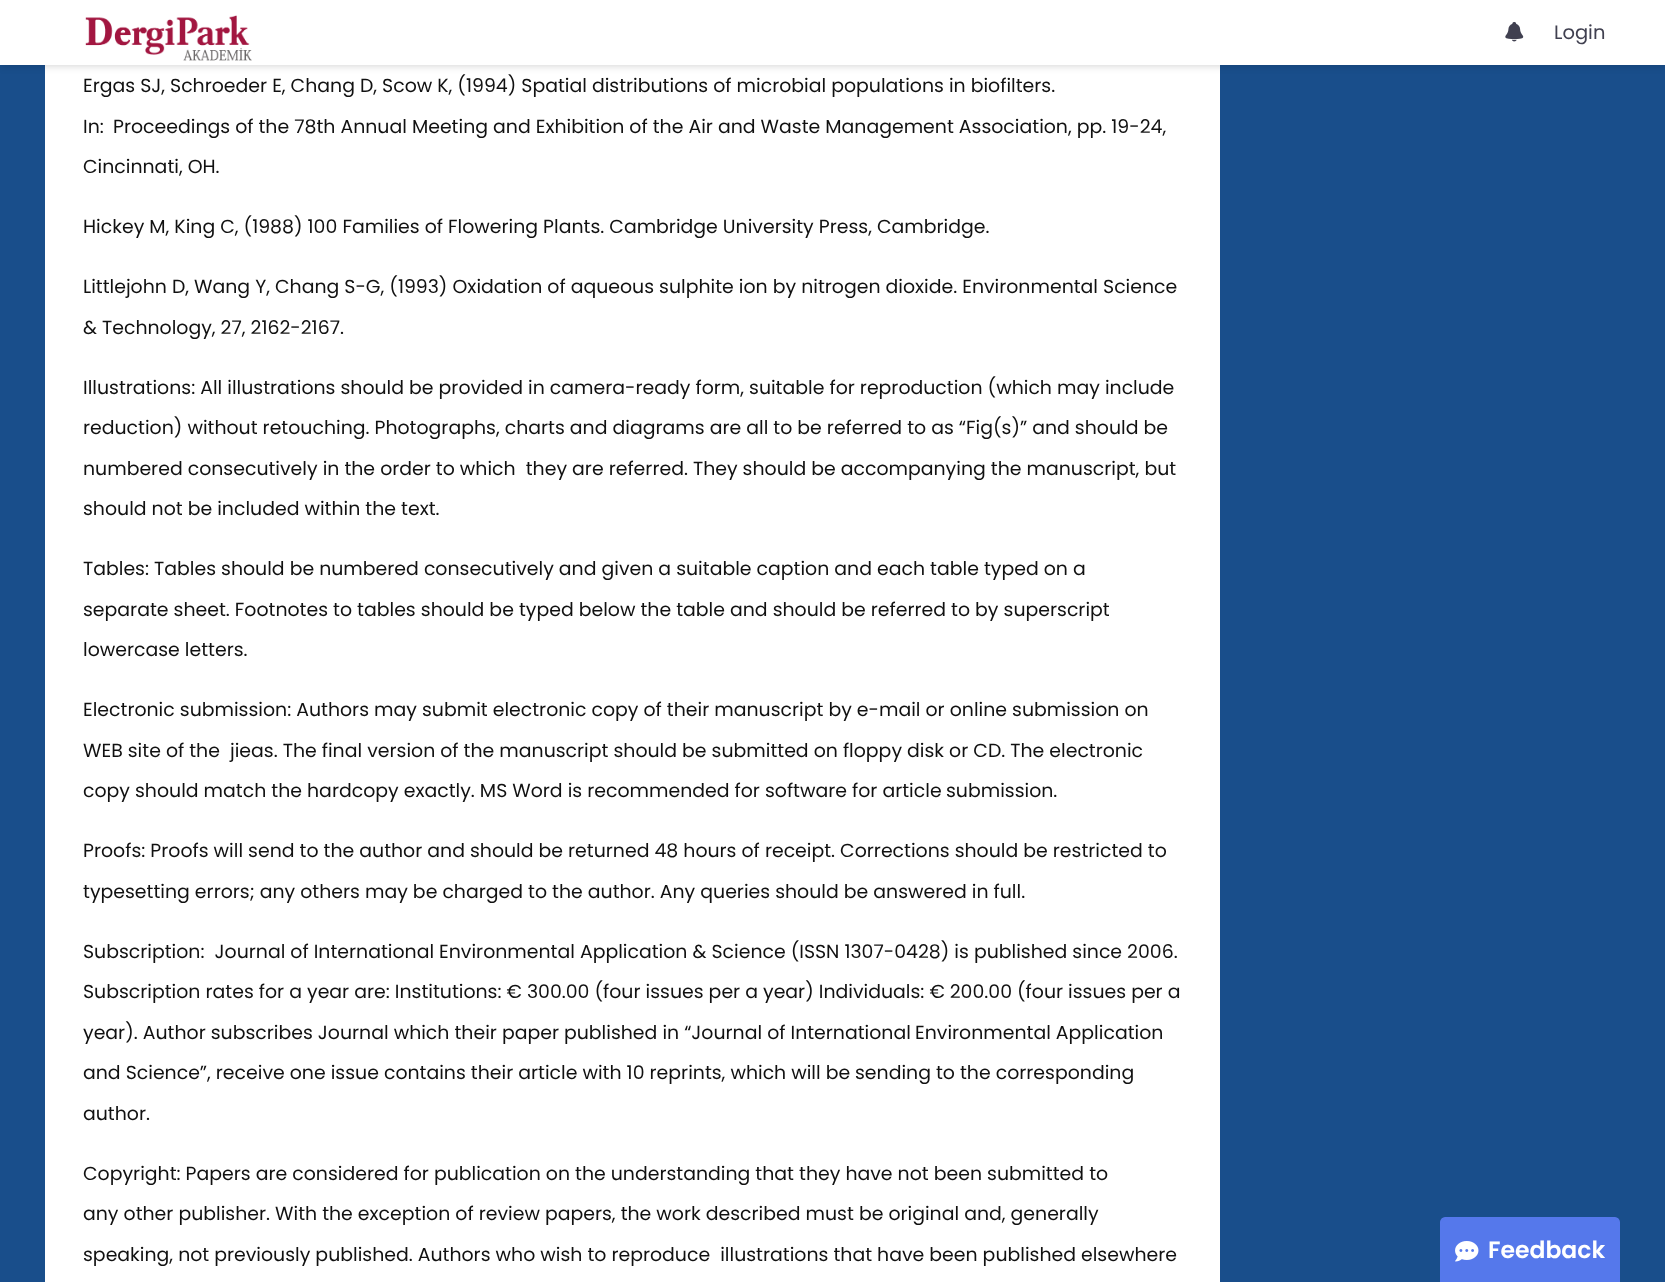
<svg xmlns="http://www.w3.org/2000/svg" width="1665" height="1282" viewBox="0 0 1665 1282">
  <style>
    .t1 { font: 19.5px Poppins; fill: #404050; }
    .t2 { font: 18.9px Poppins; fill: #111; }
    .t3 { font: 600 23.5px Poppins; fill: #fff; }
  </style>
  <rect width="100%" height="100%" fill="#194e8b"/>
  <rect x="45" y="65" width="1175" height="1217" fill="#fff"/>
  <rect x="0" y="0" width="1665" height="65" fill="#00000033" filter="blur(4px)"/>
  <rect x="0" y="0" width="1665" height="65" fill="#fff"/>
  <image x="85" y="15" width="167" height="46" href="images/1.png"/>
  <image x="1505" y="21" width="19" height="21" href="images/2.png"/>
  <text x="1554" y="39" class="t1">Login</text>
  <text x="83" y="92" class="t2">Ergas SJ, Schroeder E, Chang D, Scow K, (1994) Spatial distributions of microbial populations in biofilters.</text>
  <text x="83" y="133" class="t2">In:</text>
  <text x="113" y="133" class="t2">Proceedings of the 78th Annual Meeting and Exhibition of the Air and Waste Management Association, pp. 19-24,</text>
  <text x="83" y="173" class="t2">Cincinnati, OH.</text>
  <text x="83" y="233" class="t2">Hickey M, King C, (1988) 100 Families of Flowering Plants. Cambridge University Press, Cambridge.</text>
  <text x="83" y="293" class="t2">Littlejohn D, Wang Y, Chang S-G, (1993) Oxidation of aqueous sulphite ion by nitrogen dioxide. Environmental Science</text>
  <text x="83" y="334" class="t2">&amp; Technology, 27, 2162-2167.</text>
  <text x="83" y="394" class="t2">Illustrations: All illustrations should be provided in camera-ready form, suitable for reproduction (which may include</text>
  <text x="83" y="434" class="t2">reduction) without retouching. Photographs, charts and diagrams are all to be referred to as “Fig(s)” and should be</text>
  <text x="83" y="475" class="t2" xml:space="preserve">numbered consecutively in the order to which  they are referred. They should be accompanying the manuscript, but</text>
  <text x="83" y="515" class="t2">should not be included within the text.</text>
  <text x="83" y="575" class="t2">Tables: Tables should be numbered consecutively and given a suitable caption and each table typed on a</text>
  <text x="83" y="616" class="t2">separate sheet. Footnotes to tables should be typed below the table and should be referred to by superscript</text>
  <text x="83" y="656" class="t2">lowercase letters.</text>
  <text x="83" y="716" class="t2">Electronic submission: Authors may submit electronic copy of their manuscript by e-mail or online submission on</text>
  <text x="83" y="757" class="t2" xml:space="preserve">WEB site of the  jieas. The final version of the manuscript should be submitted on floppy disk or CD. The electronic</text>
  <text x="83" y="797" class="t2">copy should match the hardcopy exactly. MS Word is recommended for software for article</text>
  <text x="946" y="797" class="t2">submission.</text>
  <text x="83" y="857" class="t2">Proofs: Proofs will send to the author and should be returned 48 hours of receipt. Corrections should be restricted to</text>
  <text x="83" y="898" class="t2">typesetting errors; any others may be charged to the author. Any queries should be answered in full.</text>
  <text x="83" y="958" class="t2" xml:space="preserve">Subscription:  Journal of International Environmental Application &amp; Science (ISSN 1307-0428) is published since 2006.</text>
  <text x="83" y="998" class="t2">Subscription rates for a year are: Institutions: € 300.00 (four issues per a year) Individuals: € 200.00</text>
  <text x="1017" y="998" class="t2">(four issues per a</text>
  <text x="83" y="1039" class="t2">year). Author subscribes Journal which their paper published in “Journal of International</text>
  <text x="915" y="1039" class="t2">Environmental Application</text>
  <text x="83" y="1079" class="t2">and Science”, receive one issue contains their article with 10 reprints, which will be</text>
  <text x="855" y="1079" class="t2">sending to the corresponding</text>
  <text x="83" y="1120" class="t2">author.</text>
  <text x="83" y="1180" class="t2">Copyright: Papers are considered for publication on the understanding that they have not been submitted to</text>
  <text x="83" y="1220" class="t2">any other publisher. With the exception of review papers, the work described must be original and, generally</text>
  <text x="83" y="1261" class="t2" xml:space="preserve">speaking, not previously published. Authors who wish to reproduce  illustrations that have been published elsewhere</text>
  <path d="M1445 1218H1615C1617 1218 1619 1220 1619 1222V1282H1441V1222C1441 1220 1443 1218 1445 1218Z" fill="#5578eb" stroke="#5578eb" stroke-width="2"/>
  <image x="1455" y="1241" width="24" height="21" href="images/3.png"/>
  <text x="1488" y="1258" class="t3">Feedback</text>
</svg>
